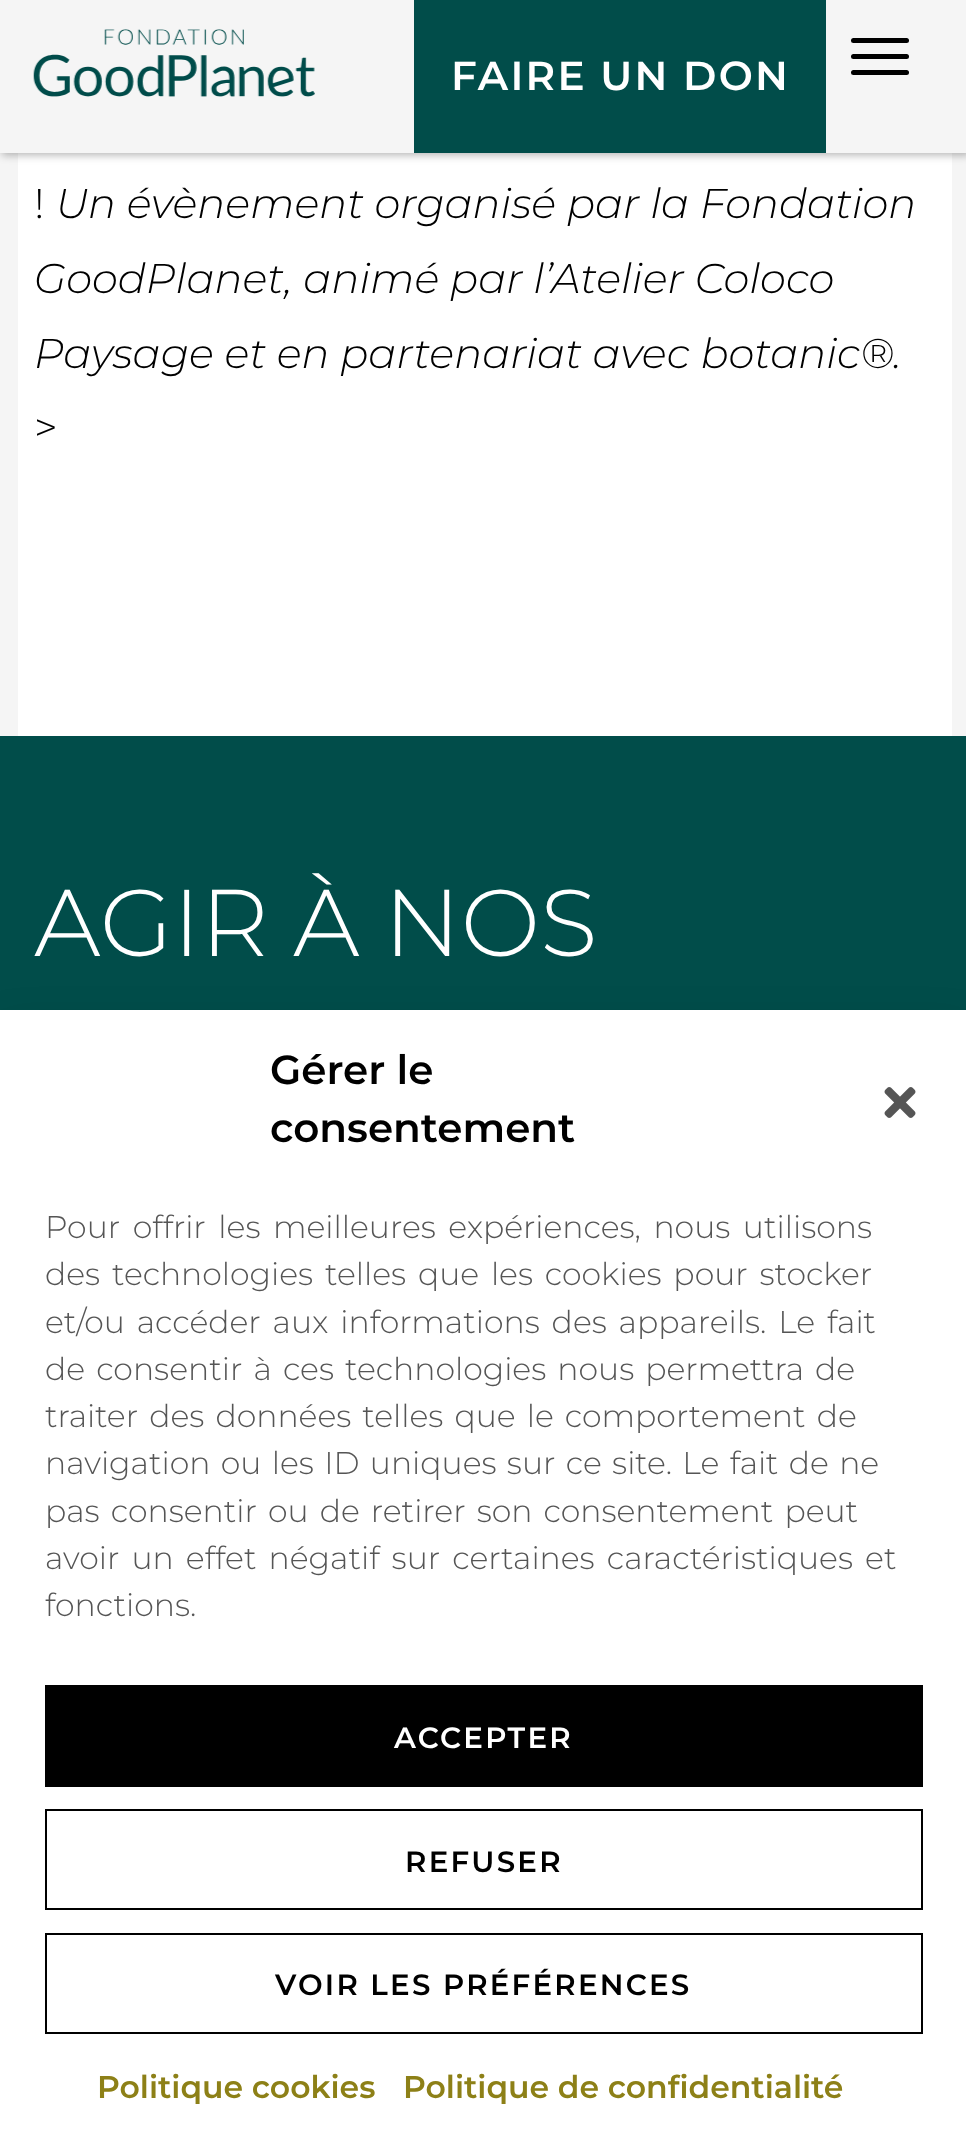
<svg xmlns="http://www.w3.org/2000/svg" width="966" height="2148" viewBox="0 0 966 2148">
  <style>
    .t1 { font: 600 40.5px Montserrat; letter-spacing: 2.25px; fill: #fff; }
    .t2 { font: 300 41.6px Montserrat; fill: #000; }
    .t3 { font: italic 100 41.6px Montserrat; fill: #000; }
    .t4 { font: 300 94.5px Montserrat; fill: #fff; }
    .t5 { font: 600 40.5px Montserrat; fill: #000; }
    .t6 { font: 300 31.5px Montserrat; fill: #555; }
    .t7 { font: 600 29.25px Montserrat; letter-spacing: 2.25px; fill: #fff; }
    .t8 { font: 600 29.25px Montserrat; letter-spacing: 2.25px; fill: #000; }
    .t9 { font: 600 31.5px Montserrat; fill: #8d8017; }
  </style>
  <rect width="100%" height="100%" fill="#f5f5f5"/>
  <rect x="18" y="153" width="934" height="583" fill="#fff"/>
  <rect x="2" y="2" width="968" height="153" fill="#0000004d" filter="blur(4.5px)"/>
  <rect x="0" y="0" width="966" height="153" fill="#f5f5f5"/>
  <image x="33" y="29" width="282" height="68" href="images/1.png"/>
  <rect x="414" y="0" width="412" height="153" fill="#014d4a"/>
  <text x="451" y="90" class="t1">FAIRE UN DON</text>
  <rect x="851" y="38" width="58" height="5" rx="2.5" fill="#000"/>
  <rect x="851" y="54" width="58" height="5" rx="2.5" fill="#000"/>
  <rect x="851" y="70" width="58" height="5" rx="2.5" fill="#000"/>
  <text x="34" y="218" class="t2">!</text>
  <text x="56" y="218" class="t3">Un évènement organisé par la Fondation</text>
  <text x="34" y="293" class="t3">GoodPlanet, animé par l’Atelier Coloco</text>
  <text x="34" y="368" class="t3">Paysage et en partenariat avec botanic®.</text>
  <text x="34" y="442" class="t2">&gt;</text>
  <rect x="0" y="736" width="966" height="274" fill="#014d4a"/>
  <text x="34" y="956" class="t4">AGIR À NOS</text>
  <rect x="0" y="1033" width="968" height="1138" fill="#00000030" filter="blur(22.5px)"/>
  <rect x="0" y="1010" width="966" height="1138" fill="#fff"/>
  <text x="270" y="1084" class="t5">Gérer le</text>
  <text x="270" y="1142" class="t5">consentement</text>
  <image x="884" y="1087" width="32" height="31" href="images/2.png"/>
  <text x="45" y="1238" word-spacing="4.5" class="t6">Pour offrir les meilleures expériences, nous utilisons</text>
  <text x="45" y="1285" word-spacing="3.75" class="t6">des technologies telles que les cookies pour stocker</text>
  <text x="45" y="1333" word-spacing="3.75" class="t6">et/ou accéder aux informations des appareils. Le fait</text>
  <text x="45" y="1380" word-spacing="3" class="t6">de consentir à ces technologies nous permettra de</text>
  <text x="45" y="1427" word-spacing="3" class="t6">traiter des données telles que le comportement de</text>
  <text x="45" y="1474" word-spacing="2.25" class="t6">navigation ou les ID uniques sur ce site. Le fait de ne</text>
  <text x="45" y="1522" word-spacing="3" class="t6">pas consentir ou de retirer son consentement peut</text>
  <text x="45" y="1569" word-spacing="4" class="t6">avoir un effet négatif sur certaines caractéristiques et</text>
  <text x="45" y="1616" class="t6">fonctions.</text>
  <rect x="45" y="1685" width="878" height="102" fill="#000"/>
  <text x="394" y="1748" class="t7">ACCEPTER</text>
  <rect x="46" y="1810" width="876" height="99" fill="none" stroke="#000" stroke-width="2"/>
  <text x="405" y="1872" class="t8">REFUSER</text>
  <rect x="46" y="1934" width="876" height="99" fill="none" stroke="#000" stroke-width="2"/>
  <text x="275" y="1995" class="t8">VOIR LES PRÉFÉRENCES</text>
  <text x="97" y="2098" class="t9">Politique cookies</text>
  <text x="403" y="2098" class="t9">Politique de confidentialité</text>
</svg>
